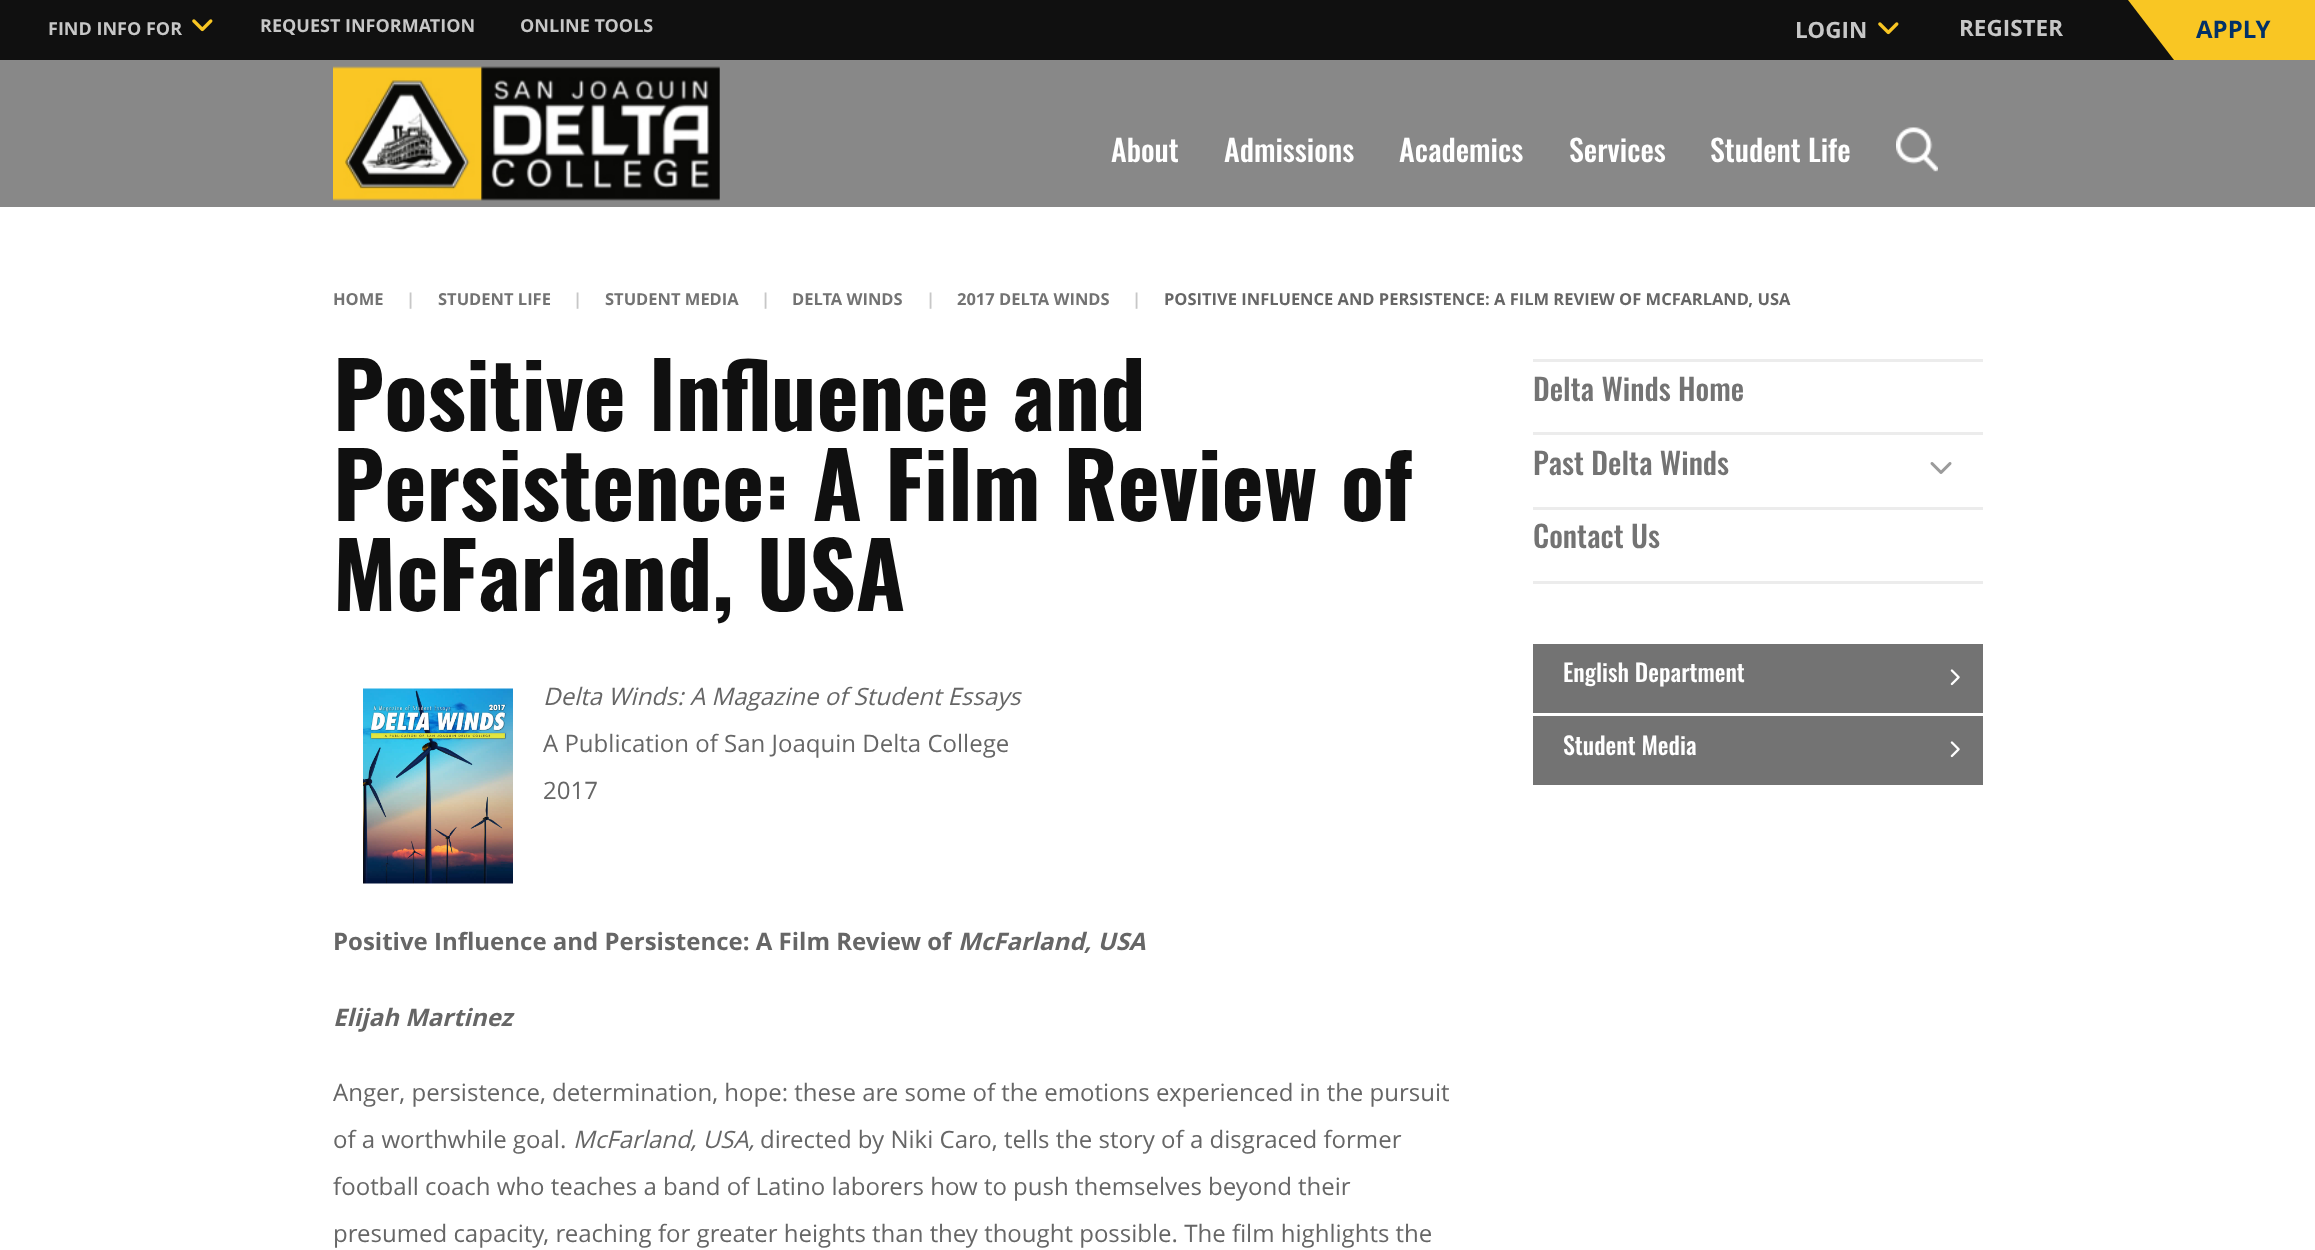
<svg xmlns="http://www.w3.org/2000/svg" width="2315" height="1250" viewBox="0 0 2315 1250">
  <style>
    .t1 { font: bold 18px Open Sans; fill: #c7c7c7; }
    .t2 { font: bold 22.5px Open Sans; fill: #c7c7c7; }
    .t3 { font: bold 24px Open Sans; fill: #023167; }
    .t4 { font: 500 30px Oswald; fill: #fff; }
    .t5 { font: bold 16.5px Open Sans; fill: #737373; }
    .t6 { font: bold 16.5px Open Sans; fill: #c7c7c7; }
    .t7 { font: bold 16.5px Open Sans; fill: #666; }
    .t8 { font: bold 90px Oswald; fill: #101010; }
    .t9 { font: italic 24px Open Sans; fill: #666; }
    .t10 { font: 24px Open Sans; fill: #666; }
    .t11 { font: bold 24px Open Sans; fill: #666; }
    .t12 { font: italic bold 24px Open Sans; fill: #666; }
    .t13 { font: 500 30px Oswald; fill: #737373; }
    .t14 { font: 500 24px Oswald; fill: #fff; }
  </style>
  <rect width="100%" height="100%" fill="#fff"/>
  <rect x="0" y="0" width="2174" height="60" fill="#101010"/>
  <text x="48" y="35" class="t1">FIND INFO FOR</text>
  <image x="192" y="19" width="21" height="13" href="images/1.png"/>
  <text x="260" y="32" class="t1">REQUEST INFORMATION</text>
  <text x="520" y="32" class="t1">ONLINE TOOLS</text>
  <text x="1795" y="38" class="t2">LOGIN</text>
  <image x="1878" y="22" width="21" height="13" href="images/1.png"/>
  <text x="1959" y="36" class="t2">REGISTER</text>
  <rect x="2174" y="0" width="141" height="60" fill="#f9c623"/>
  <path d="M2174 0V60L2128 0Z" fill="#f9c623"/>
  <text x="2196" y="38" class="t3">APPLY</text>
  <rect x="0" y="60" width="2315" height="147" fill="#888"/>
  <image x="333" y="66" width="387" height="135" href="images/2.png"/>
  <text x="1111" y="162" class="t4">About</text>
  <text x="1224" y="162" class="t4">Admissions</text>
  <text x="1399" y="162" class="t4">Academics</text>
  <text x="1569" y="162" class="t4">Services</text>
  <text x="1710" y="162" class="t4">Student Life</text>
  <image x="1896" y="127" width="42" height="45" href="images/3.png"/>
  <text x="333" y="305" class="t5">HOME</text>
  <text x="406" y="305" class="t6">|</text>
  <text x="438" y="305" class="t5">STUDENT LIFE</text>
  <text x="573" y="305" class="t6">|</text>
  <text x="605" y="305" class="t5">STUDENT MEDIA</text>
  <text x="761" y="305" class="t6">|</text>
  <text x="792" y="305" class="t5">DELTA WINDS</text>
  <text x="926" y="305" class="t6">|</text>
  <text x="957" y="305" class="t5">2017 DELTA WINDS</text>
  <text x="1132" y="305" class="t6">|</text>
  <text x="1164" y="305" class="t7">POSITIVE INFLUENCE AND PERSISTENCE: A FILM REVIEW OF MCFARLAND, USA</text>
  <text x="333" y="431" class="t8">Positive Influence and</text>
  <text x="333" y="521" class="t8">Persistence: A Film Review of</text>
  <text x="333" y="611" class="t8">McFarland, USA</text>
  <image x="363" y="688" width="150" height="196" href="images/4.png"/>
  <text x="543" y="705" class="t9">Delta Winds: A Magazine of Student Essays</text>
  <text x="543" y="752" class="t10">A Publication of San Joaquin Delta College</text>
  <text x="543" y="799" class="t10">2017</text>
  <text x="333" y="950" class="t11">Positive Influence and Persistence: A Film Review of</text>
  <text x="958" y="950" class="t12">McFarland, USA</text>
  <text x="333" y="1026" class="t12">Elijah Martinez</text>
  <text x="333" y="1101" class="t10">Anger, persistence, determination, hope: these are some of the emotions experienced in the pursuit</text>
  <text x="333" y="1148" class="t10">of a worthwhile goal.</text>
  <text x="573" y="1148" class="t9">McFarland, USA,</text>
  <text x="760" y="1148" class="t10">directed by Niki Caro, tells the story of a disgraced former</text>
  <text x="333" y="1195" class="t10">football coach who teaches a band of Latino laborers how to push themselves beyond their</text>
  <text x="333" y="1242" class="t10">presumed capacity, reaching for greater heights than they thought possible. The film highlights the</text>
  <rect x="1533" y="359" width="450" height="3" fill="#ececec"/>
  <rect x="1533" y="432" width="450" height="3" fill="#ececec"/>
  <text x="1533" y="401" class="t13">Delta Winds Home</text>
  <rect x="1533" y="507" width="450" height="3" fill="#ececec"/>
  <text x="1533" y="475" class="t13">Past Delta Winds</text>
  <image x="1930" y="462" width="22" height="12" href="images/5.png"/>
  <rect x="1533" y="581" width="450" height="3" fill="#ececec"/>
  <text x="1533" y="548" class="t13">Contact Us</text>
  <rect x="1533" y="644" width="450" height="69" fill="#737373"/>
  <text x="1563" y="682" class="t14">English Department</text>
  <image x="1950" y="669" width="10" height="17" href="images/6.png"/>
  <rect x="1533" y="716" width="450" height="69" fill="#737373"/>
  <text x="1563" y="755" class="t14">Student Media</text>
  <image x="1950" y="741" width="10" height="17" href="images/6.png"/>
</svg>
